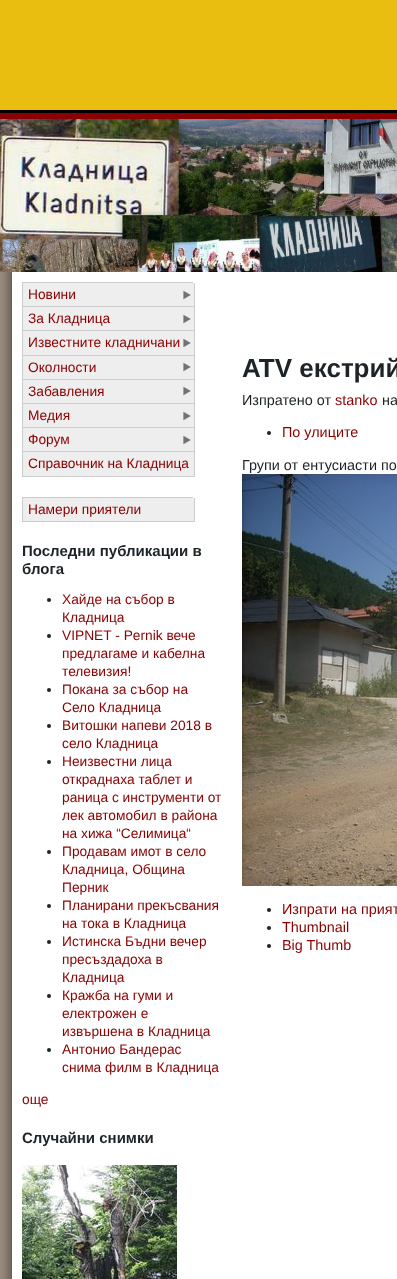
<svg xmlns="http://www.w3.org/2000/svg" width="397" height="1279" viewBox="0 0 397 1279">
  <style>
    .t1 { font: 13.75px Liberation Sans; fill: #8b0000; }
    .t2 { font: bold 15px Liberation Sans; fill: #1d2326; }
    .t3 { font: bold 26px Liberation Sans; fill: #1d2326; }
    .t4 { font: 14.4px Liberation Sans; fill: #1d2326; }
    .t5 { font: 14.4px Liberation Sans; fill: #8b0000; }
  </style>
  <rect width="100%" height="100%" fill="#eabe10"/>
  <rect x="0" y="113" width="397" height="6" fill="#8b0000"/>
  <rect x="0" y="110" width="397" height="3" fill="#000"/>
  <image x="0" y="119" width="397" height="153" href="images/1.png"/>
  <image x="0" y="272" width="12" height="1007" href="images/2.png"/>
  <rect x="12" y="272" width="385" height="1007" fill="#fff"/>
  <rect x="22" y="282" width="171" height="1" fill="#ccc"/>
  <rect x="23" y="283" width="171" height="23" fill="#eee"/>
  <image x="183" y="290" width="8" height="10" href="images/3.png"/>
  <rect x="194" y="283" width="1" height="194" fill="#ccc"/>
  <rect x="22" y="306" width="173" height="1" fill="#ccc"/>
  <rect x="22" y="283" width="1" height="24" fill="#ccc"/>
  <text x="28" y="299" class="t1">Новини</text>
  <rect x="23" y="307" width="171" height="23" fill="#eee"/>
  <image x="183" y="314" width="8" height="10" href="images/3.png"/>
  <rect x="22" y="330" width="173" height="1" fill="#ccc"/>
  <rect x="22" y="307" width="1" height="24" fill="#ccc"/>
  <text x="28" y="323" class="t1">За Кладница</text>
  <rect x="23" y="331" width="171" height="24" fill="#eee"/>
  <image x="183" y="338" width="8" height="10" href="images/3.png"/>
  <rect x="22" y="355" width="173" height="1" fill="#ccc"/>
  <rect x="22" y="331" width="1" height="25" fill="#ccc"/>
  <text x="28" y="347" class="t1">Известните кладничани</text>
  <rect x="23" y="356" width="171" height="23" fill="#eee"/>
  <image x="183" y="362" width="8" height="10" href="images/3.png"/>
  <rect x="22" y="379" width="173" height="1" fill="#ccc"/>
  <rect x="22" y="356" width="1" height="24" fill="#ccc"/>
  <text x="28" y="372" class="t1">Околности</text>
  <rect x="23" y="380" width="171" height="23" fill="#eee"/>
  <image x="183" y="386" width="8" height="10" href="images/3.png"/>
  <rect x="22" y="403" width="173" height="1" fill="#ccc"/>
  <rect x="22" y="380" width="1" height="24" fill="#ccc"/>
  <text x="28" y="396" class="t1">Забавления</text>
  <rect x="23" y="404" width="171" height="23" fill="#eee"/>
  <image x="183" y="411" width="8" height="10" href="images/3.png"/>
  <rect x="22" y="427" width="173" height="1" fill="#ccc"/>
  <rect x="22" y="404" width="1" height="24" fill="#ccc"/>
  <text x="28" y="420" class="t1">Медия</text>
  <rect x="23" y="428" width="171" height="23" fill="#eee"/>
  <image x="183" y="435" width="8" height="10" href="images/3.png"/>
  <rect x="22" y="451" width="173" height="1" fill="#ccc"/>
  <rect x="22" y="428" width="1" height="24" fill="#ccc"/>
  <text x="28" y="444" class="t1">Форум</text>
  <rect x="23" y="452" width="171" height="24" fill="#eee"/>
  <rect x="22" y="476" width="173" height="1" fill="#ccc"/>
  <rect x="22" y="452" width="1" height="25" fill="#ccc"/>
  <text x="28" y="468" class="t1">Справочник на Кладница</text>
  <rect x="22" y="497" width="171" height="1" fill="#ccc"/>
  <rect x="23" y="498" width="171" height="23" fill="#eee"/>
  <rect x="194" y="498" width="1" height="24" fill="#ccc"/>
  <rect x="22" y="521" width="173" height="1" fill="#ccc"/>
  <rect x="22" y="498" width="1" height="24" fill="#ccc"/>
  <text x="28" y="514" class="t1">Намери приятели</text>
  <text x="22" y="556" class="t2">Последни публикации в</text>
  <text x="22" y="574" class="t2">блога</text>
  <circle cx="49" cy="600" r="2" fill="#1d2326"/>
  <text x="62" y="604" class="t1">Хайде на събор в</text>
  <text x="62" y="622" class="t1">Кладница</text>
  <circle cx="49" cy="636" r="2" fill="#1d2326"/>
  <text x="62" y="640" class="t1">VIPNET - Pernik вече</text>
  <text x="62" y="658" class="t1">предлагаме и кабелна</text>
  <text x="62" y="676" class="t1">телевизия!</text>
  <circle cx="49" cy="690" r="2" fill="#1d2326"/>
  <text x="62" y="694" class="t1">Покана за събор на</text>
  <text x="62" y="712" class="t1">Село Кладница</text>
  <circle cx="49" cy="726" r="2" fill="#1d2326"/>
  <text x="62" y="730" class="t1">Витошки напеви 2018 в</text>
  <text x="62" y="748" class="t1">село Кладница</text>
  <circle cx="49" cy="762" r="2" fill="#1d2326"/>
  <text x="62" y="766" class="t1">Неизвестни лица</text>
  <text x="62" y="784" class="t1">откраднаха таблет и</text>
  <text x="62" y="802" class="t1">раница с инструменти от</text>
  <text x="62" y="820" class="t1">лек автомобил в района</text>
  <text x="62" y="838" class="t1">на хижа “Селимица“</text>
  <circle cx="49" cy="852" r="2" fill="#1d2326"/>
  <text x="62" y="856" class="t1">Продавам имот в село</text>
  <text x="62" y="874" class="t1">Кладница, Община</text>
  <text x="62" y="892" class="t1">Перник</text>
  <circle cx="49" cy="906" r="2" fill="#1d2326"/>
  <text x="62" y="910" class="t1">Планирани прекъсвания</text>
  <text x="62" y="928" class="t1">на тока в Кладница</text>
  <circle cx="49" cy="942" r="2" fill="#1d2326"/>
  <text x="62" y="946" class="t1">Истинска Бъдни вечер</text>
  <text x="62" y="964" class="t1">пресъздадоха в</text>
  <text x="62" y="982" class="t1">Кладница</text>
  <circle cx="49" cy="996" r="2" fill="#1d2326"/>
  <text x="62" y="1000" class="t1">Кражба на гуми и</text>
  <text x="62" y="1018" class="t1">електрожен е</text>
  <text x="62" y="1036" class="t1">извършена в Кладница</text>
  <circle cx="49" cy="1050" r="2" fill="#1d2326"/>
  <text x="62" y="1054" class="t1">Антонио Бандерас</text>
  <text x="62" y="1072" class="t1">снима филм в Кладница</text>
  <text x="22" y="1104" class="t1">още</text>
  <text x="22" y="1143" class="t2">Случайни снимки</text>
  <image x="22" y="1165" width="155" height="114" href="images/4.png"/>
  <text x="242" y="377" class="t3">ATV екстрий</text>
  <text x="242" y="405" class="t4">Изпратено от</text>
  <text x="335" y="405" class="t5">stanko</text>
  <text x="382" y="405" class="t4">на</text>
  <circle cx="269" cy="433" r="2" fill="#1d2326"/>
  <text x="282" y="437" class="t5">По улиците</text>
  <text x="242" y="470" class="t4">Групи от ентусиасти по</text>
  <image x="242" y="474" width="155" height="412" href="images/5.png"/>
  <circle cx="269" cy="910" r="2" fill="#1d2326"/>
  <text x="282" y="914" class="t5">Изпрати на прият</text>
  <circle cx="269" cy="928" r="2" fill="#1d2326"/>
  <text x="282" y="932" class="t5">Thumbnail</text>
  <circle cx="269" cy="946" r="2" fill="#1d2326"/>
  <text x="282" y="950" class="t5">Big Thumb</text>
</svg>
